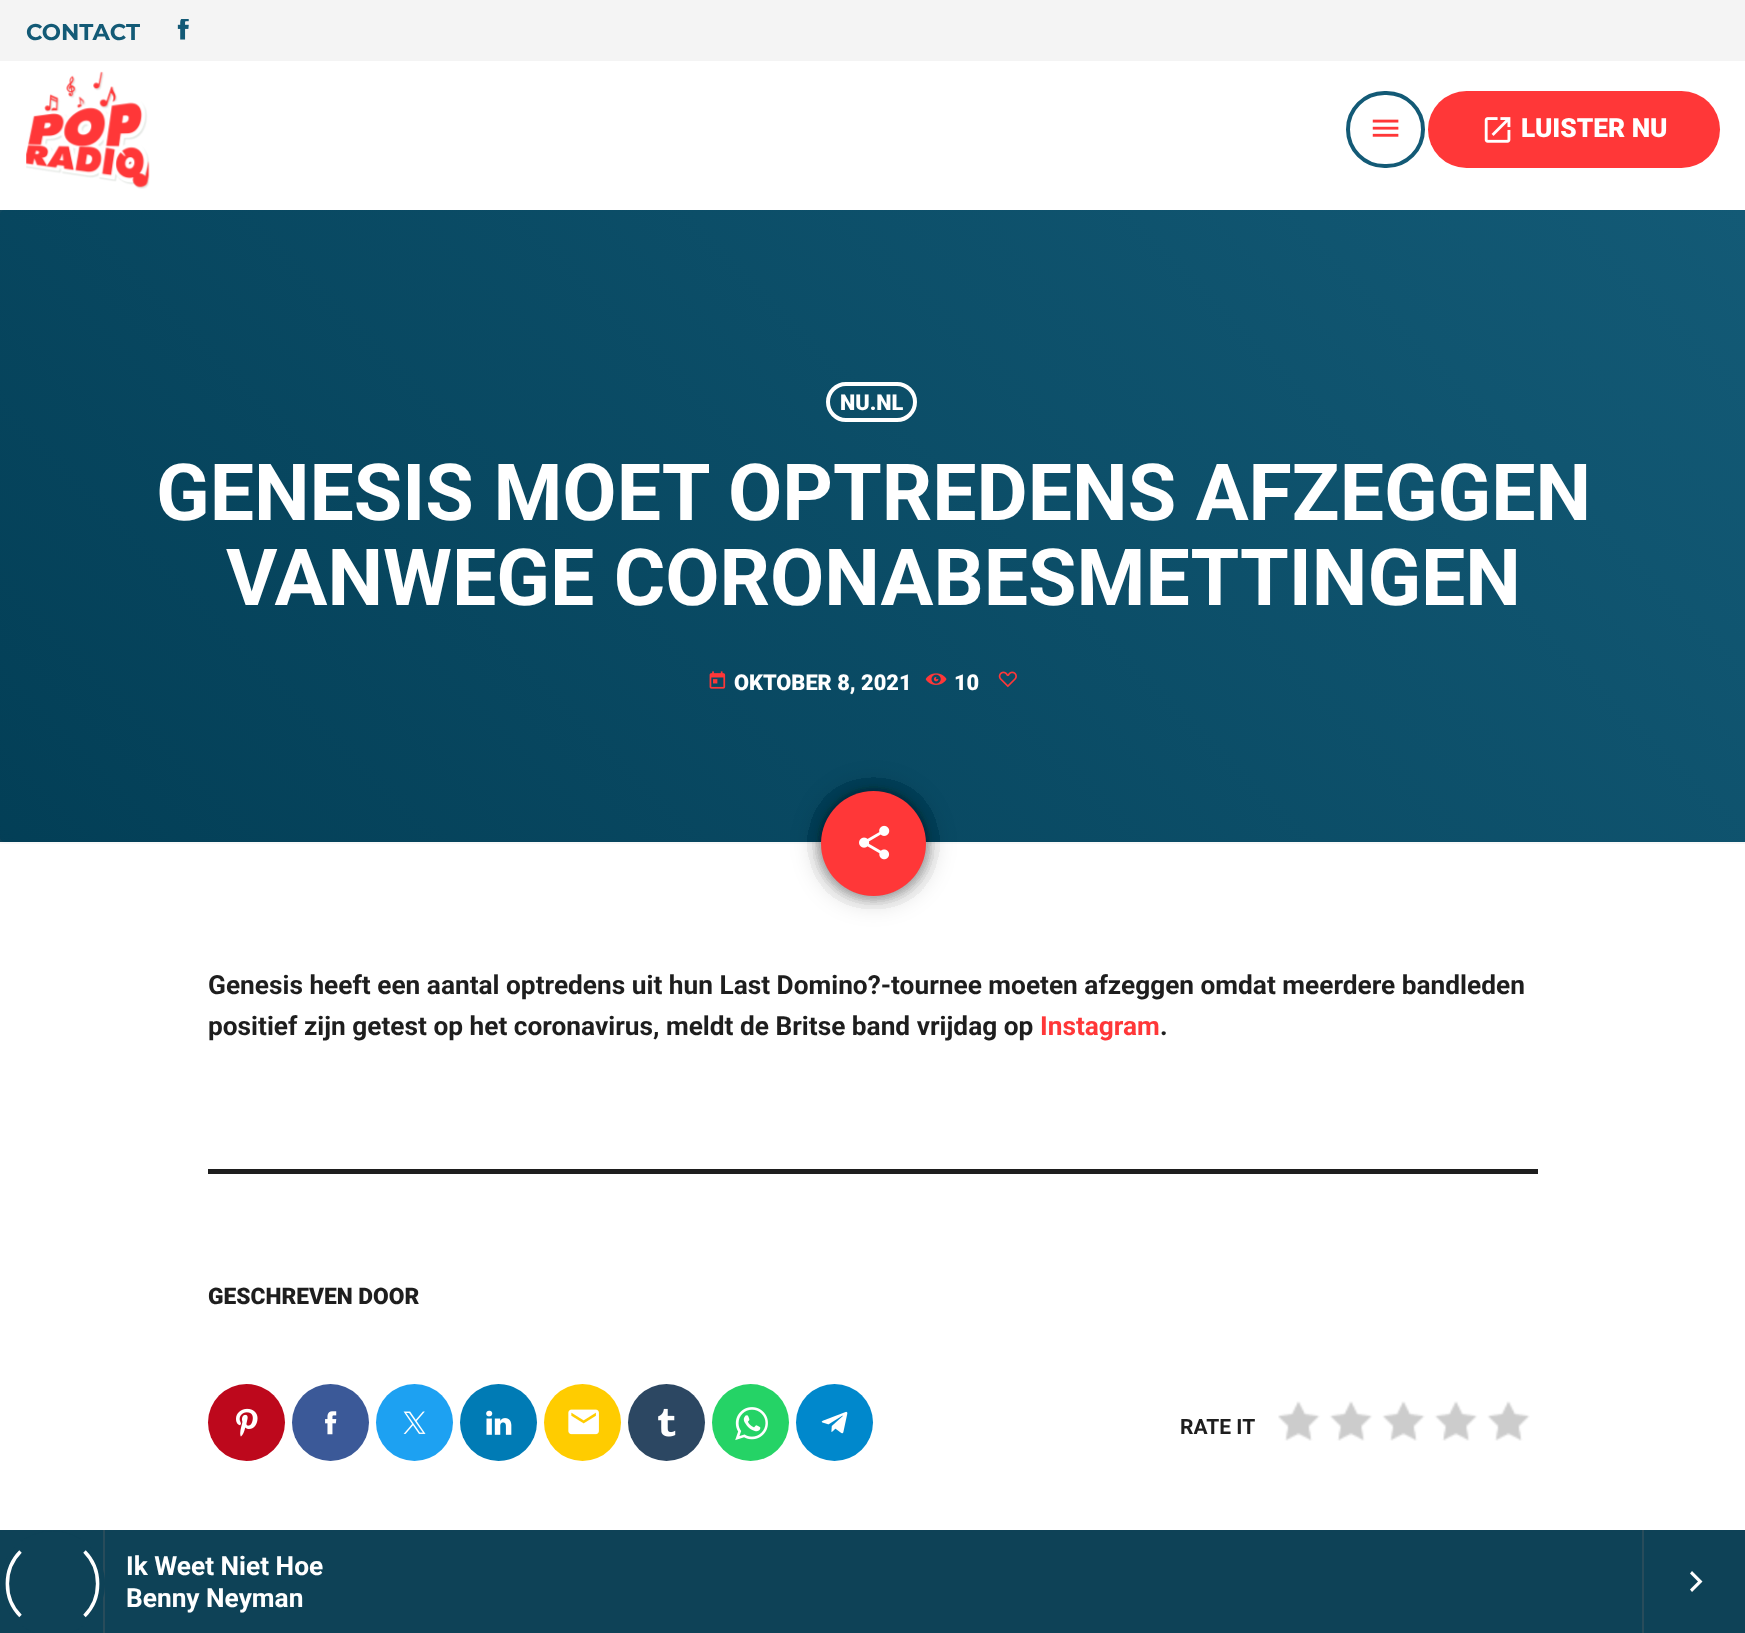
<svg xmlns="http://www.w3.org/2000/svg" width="1745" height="1633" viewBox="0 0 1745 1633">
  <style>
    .t1 { font: bold 22.75px Montserrat; fill: #135a76; }
    .t2 { font: 900 26.25px Roboto; fill: #fff; }
    .t3 { font: bold 26.25px Roboto; fill: #fff; }
    .t4 { font: 900 21.75px Roboto; fill: #fff; }
    .t5 { font: bold 78.75px Roboto; fill: #fff; }
    .t6 { font: bold 26.25px Roboto; fill: #1e1e1e; }
    .t7 { font: bold 26.25px Roboto; fill: #ff3738; }
    .t8 { font: 900 22.75px Roboto; fill: #1e1e1e; }
    .t9 { font: bold 21px Roboto; fill: #1e1e1e; }
  </style>
  <defs>
    <clipPath id="clip1"><rect x="26" y="21" width="114" height="23"/></clipPath>
    <linearGradient id="g1" gradientUnits="userSpaceOnUse" x1="279" y1="1120" x2="1468" y2="-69"><stop offset="0" stop-color="#135a76" stop-opacity="0.15"/><stop offset="1" stop-color="#135a76"/></linearGradient>
  </defs>
  <rect width="100%" height="100%" fill="#fff"/>
  <rect x="0" y="0" width="1745" height="61" fill="#f4f4f4"/>
  <g clip-path="url(#clip1)">
    <text x="26" y="40" class="t1">CONTACT</text>
  </g>
  <image x="177" y="19" width="12" height="21" href="images/1.png"/>
  <image x="26" y="71" width="124" height="118" href="images/2.png"/>
  <rect x="1348" y="93" width="75" height="73" rx="36.5" fill="none" stroke="#135a76" stroke-width="4"/>
  <image x="1372" y="119" width="27" height="18" href="images/3.png"/>
  <rect x="1428" y="91" width="292" height="77" rx="38.5" fill="#ff3738"/>
  <image x="1484" y="117" width="27" height="26" href="images/4.png"/>
  <text x="1521" y="137" class="t2">LUISTER NU</text>
  <rect x="0" y="1530" width="1745" height="103" fill="#0e4257"/>
  <rect x="103" y="1530" width="2" height="103" fill="#284c5b"/>
  <circle cx="52.5" cy="1583.5" r="52.5" fill="#0e4257"/>
  <path d="M84.5 1551.5C102 1569 102 1598.5 84.5 1616" fill="none" stroke="#fff" stroke-width="3.5"/>
  <path d="M20.5 1616C3 1598.5 3 1569 20.5 1551.5" fill="none" stroke="#fff" stroke-width="3.5"/>
  <text x="126" y="1575" class="t3">Ik Weet Niet Hoe</text>
  <text x="126" y="1607" class="t3">Benny Neyman</text>
  <rect x="1642" y="1530" width="2" height="103" fill="#284c5b"/>
  <path d="M1690 1589.5L1698 1581.5L1690 1573.5L1692 1571L1702.5 1581.5L1692 1592Z" fill="#fff"/>
  <rect x="0" y="842" width="1745" height="2" fill="#f8f8f8"/>
  <rect x="0" y="210" width="1745" height="632" fill="#0d3f53"/>
  <rect x="0" y="210" width="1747" height="632" rx="5" fill="#003a51"/>
  <rect x="0" y="210" width="1745" height="632" fill="url(#g1)"/>
  <rect x="828" y="384" width="87" height="36" rx="18" fill="none" stroke="#fff" stroke-width="4"/>
  <text x="840" y="410" class="t4">NU.NL</text>
  <text x="156" y="520" class="t5">GENESIS MOET OPTREDENS AFZEGGEN</text>
  <text x="226" y="605" class="t5">VANWEGE CORONABESMETTINGEN</text>
  <image x="709" y="671" width="17" height="18" href="images/5.png"/>
  <text x="734" y="690" class="t4">OKTOBER 8, 2021</text>
  <image x="925" y="673" width="22" height="12" href="images/6.png"/>
  <text x="954" y="690" class="t4">10</text>
  <image x="998" y="671" width="19" height="17" href="images/7.png"/>
  <rect x="816" y="786" width="115" height="115" rx="57.5" fill="#00000033" filter="blur(13px)"/>
  <rect x="833" y="803" width="81" height="81" rx="40.5" fill="#00000033" filter="blur(13px)"/>
  <rect x="833" y="803" width="81" height="81" rx="40.5" fill="#00000033" filter="blur(13px)"/>
  <rect x="833" y="803" width="81" height="81" rx="40.5" fill="#00000033" filter="blur(13px)"/>
  <rect x="833" y="803" width="81" height="81" rx="40.5" fill="#00000033" filter="blur(13px)"/>
  <rect x="833" y="803" width="81" height="81" rx="40.5" fill="#00000033" filter="blur(13px)"/>
  <rect x="833" y="803" width="81" height="81" rx="40.5" fill="#00000033" filter="blur(13px)"/>
  <rect x="833" y="803" width="81" height="81" rx="40.5" fill="#00000033" filter="blur(13px)"/>
  <rect x="833" y="803" width="81" height="81" rx="40.5" fill="#00000033" filter="blur(13px)"/>
  <rect x="833" y="803" width="81" height="81" rx="40.5" fill="#00000033" filter="blur(13px)"/>
  <circle cx="873.5" cy="843.5" r="52.5" fill="#ff3738"/>
  <image x="859" y="825" width="31" height="35" href="images/8.png"/>
  <text x="208" y="994" class="t6">Genesis heeft een aantal optredens uit hun Last Domino?-tournee moeten afzeggen omdat meerdere bandleden</text>
  <text x="208" y="1035" class="t6">positief zijn getest op het coronavirus, meldt de Britse band vrijdag op</text>
  <text x="1040" y="1035" class="t7">Instagram</text>
  <text x="1160" y="1035" class="t6">.</text>
  <rect x="208" y="1169" width="1330" height="5" fill="#1e1e1e"/>
  <text x="208" y="1304" class="t8">GESCHREVEN DOOR</text>
  <circle cx="246.5" cy="1422.5" r="38.5" fill="#bd081c"/>
  <image x="236" y="1408" width="22" height="29" href="images/9.png"/>
  <circle cx="330.5" cy="1422.5" r="38.5" fill="#3b5998"/>
  <image x="325" y="1411" width="12" height="24" href="images/10.png"/>
  <circle cx="414.5" cy="1422.5" r="38.5" fill="#1da1f2"/>
  <image x="403" y="1411" width="23" height="23" href="images/11.png"/>
  <circle cx="498.5" cy="1422.5" r="38.5" fill="#007bb5"/>
  <image x="486" y="1410" width="26" height="25" href="images/12.png"/>
  <circle cx="582.5" cy="1422.5" r="38.5" fill="#fc0"/>
  <image x="568" y="1409" width="31" height="26" href="images/13.png"/>
  <circle cx="666.5" cy="1422.5" r="38.5" fill="#2c4762"/>
  <image x="658" y="1408" width="18" height="29" href="images/14.png"/>
  <circle cx="750.5" cy="1422.5" r="38.5" fill="#25d366"/>
  <image x="735" y="1407" width="33" height="34" href="images/15.png"/>
  <circle cx="834.5" cy="1422.5" r="38.5" fill="#08c"/>
  <image x="821" y="1411" width="27" height="23" href="images/16.png"/>
  <text x="1180" y="1434" class="t9">RATE IT</text>
  <image x="1278" y="1401" width="252" height="40" href="images/17.png"/>
</svg>
